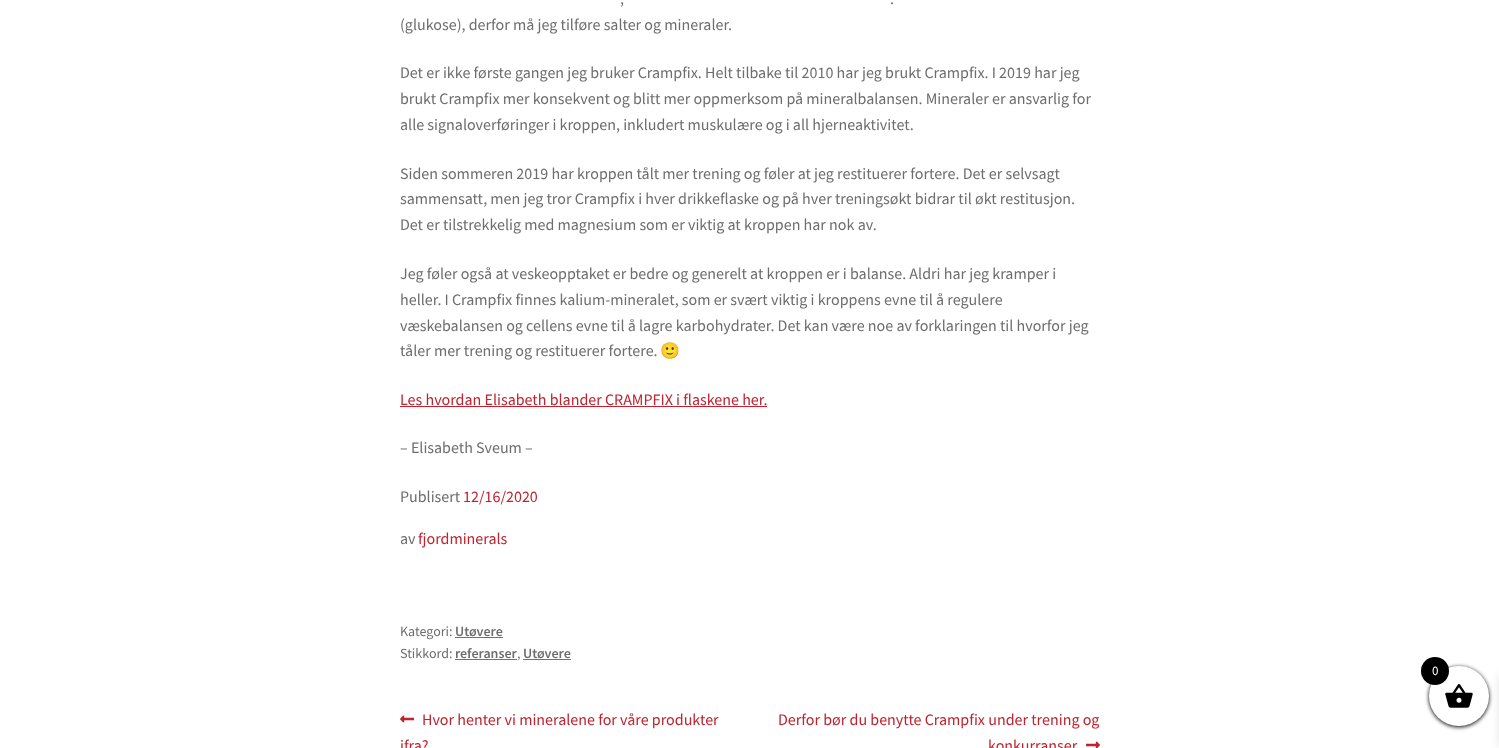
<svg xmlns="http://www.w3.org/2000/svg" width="1499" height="748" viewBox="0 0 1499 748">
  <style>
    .t1 { font: 16px Source Sans Pro; fill: #6d6d6d; }
    .t2 { font: 16px Noto Color Emoji; fill: #6d6d6d; }
    .t3 { font: 16px Source Sans Pro; fill: #be232f; }
    .t4 { font: 14px Source Sans Pro; fill: #6d6d6d; }
    .t5 { font: 600 14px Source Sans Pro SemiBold; fill: #6d6d6d; }
    .t6 { font: 13px Source Sans Pro; fill: #fff; }
  </style>
  <rect width="100%" height="100%" fill="#fff"/>
  <text x="620" y="4" class="t1">,</text>
  <text x="890" y="4" class="t1">.</text>
  <text x="400" y="30" class="t1">(glukose), derfor må jeg tilføre salter og mineraler.</text>
  <text x="400" y="78" class="t1">Det er ikke første gangen jeg bruker Crampfix. Helt tilbake til 2010 har jeg brukt Crampfix. I 2019 har jeg</text>
  <text x="400" y="104" class="t1">brukt Crampfix mer konsekvent og blitt mer oppmerksom på mineralbalansen. Mineraler er ansvarlig for</text>
  <text x="400" y="130" class="t1">alle signaloverføringer i kroppen, inkludert muskulære og i all hjerneaktivitet.</text>
  <text x="400" y="179" class="t1">Siden sommeren 2019 har kroppen tålt mer trening og føler at jeg restituerer fortere. Det er selvsagt</text>
  <text x="400" y="204" class="t1">sammensatt, men jeg tror Crampfix i hver drikkeflaske og på hver treningsøkt bidrar til økt restitusjon.</text>
  <text x="400" y="230" class="t1">Det er tilstrekkelig med magnesium som er viktig at kroppen har nok av.</text>
  <text x="400" y="279" class="t1">Jeg føler også at veskeopptaket er bedre og generelt at kroppen er i balanse. Aldri har jeg kramper i</text>
  <text x="400" y="305" class="t1">heller. I Crampfix finnes kalium-mineralet, som er svært viktig i kroppens evne til å regulere</text>
  <text x="400" y="331" class="t1">væskebalansen og cellens evne til å lagre karbohydrater. Det kan være noe av forklaringen til hvorfor jeg</text>
  <text x="400" y="356" class="t1">tåler mer trening og restituerer fortere.</text>
  <text x="660" y="356" class="t2">🙂</text>
  <text x="400" y="405" class="t3">Les hvordan Elisabeth blander CRAMPFIX i flaskene her.</text>
  <rect x="400" y="406" width="367" height="1" fill="#be232f"/>
  <text x="400" y="453" class="t1">– Elisabeth Sveum –</text>
  <text x="400" y="502" class="t1">Publisert</text>
  <text x="463" y="502" class="t3">12/16/2020</text>
  <text x="400" y="544" class="t1">av</text>
  <text x="418" y="544" class="t3">fjordminerals</text>
  <text x="400" y="636" class="t4">Kategori:</text>
  <text x="455" y="636" class="t5">Utøvere</text>
  <rect x="455" y="637" width="48" height="1" fill="#727272"/>
  <text x="400" y="658" class="t4">Stikkord:</text>
  <text x="455" y="658" class="t5">referanser</text>
  <rect x="455" y="659" width="62" height="1" fill="#727272"/>
  <text x="517" y="658" class="t4">,</text>
  <text x="523" y="658" class="t5">Utøvere</text>
  <rect x="523" y="659" width="48" height="1" fill="#727272"/>
  <image x="400" y="715" width="14" height="8" href="images/1.png"/>
  <text x="422" y="725" class="t3">Hvor henter vi mineralene for våre produkter</text>
  <text x="400" y="751" class="t3">ifra?</text>
  <text x="778" y="725" class="t3">Derfor bør du benytte Crampfix under trening og</text>
  <text x="988" y="751" class="t3">konkurranser</text>
  <image x="1086" y="741" width="14" height="7" href="images/2.png"/>
  <rect x="1429" y="667" width="60" height="60" rx="30" fill="#000" filter="blur(2px)"/>
  <rect x="1499" y="676" width="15" height="71" fill="#0000001a" filter="blur(5px)"/>
  <circle cx="1459" cy="696" r="30" fill="#fff"/>
  <image x="1445" y="684" width="28" height="24" href="images/3.png"/>
  <circle cx="1435" cy="671" r="14" fill="#000"/>
  <text x="1432" y="675" class="t6">0</text>
</svg>
